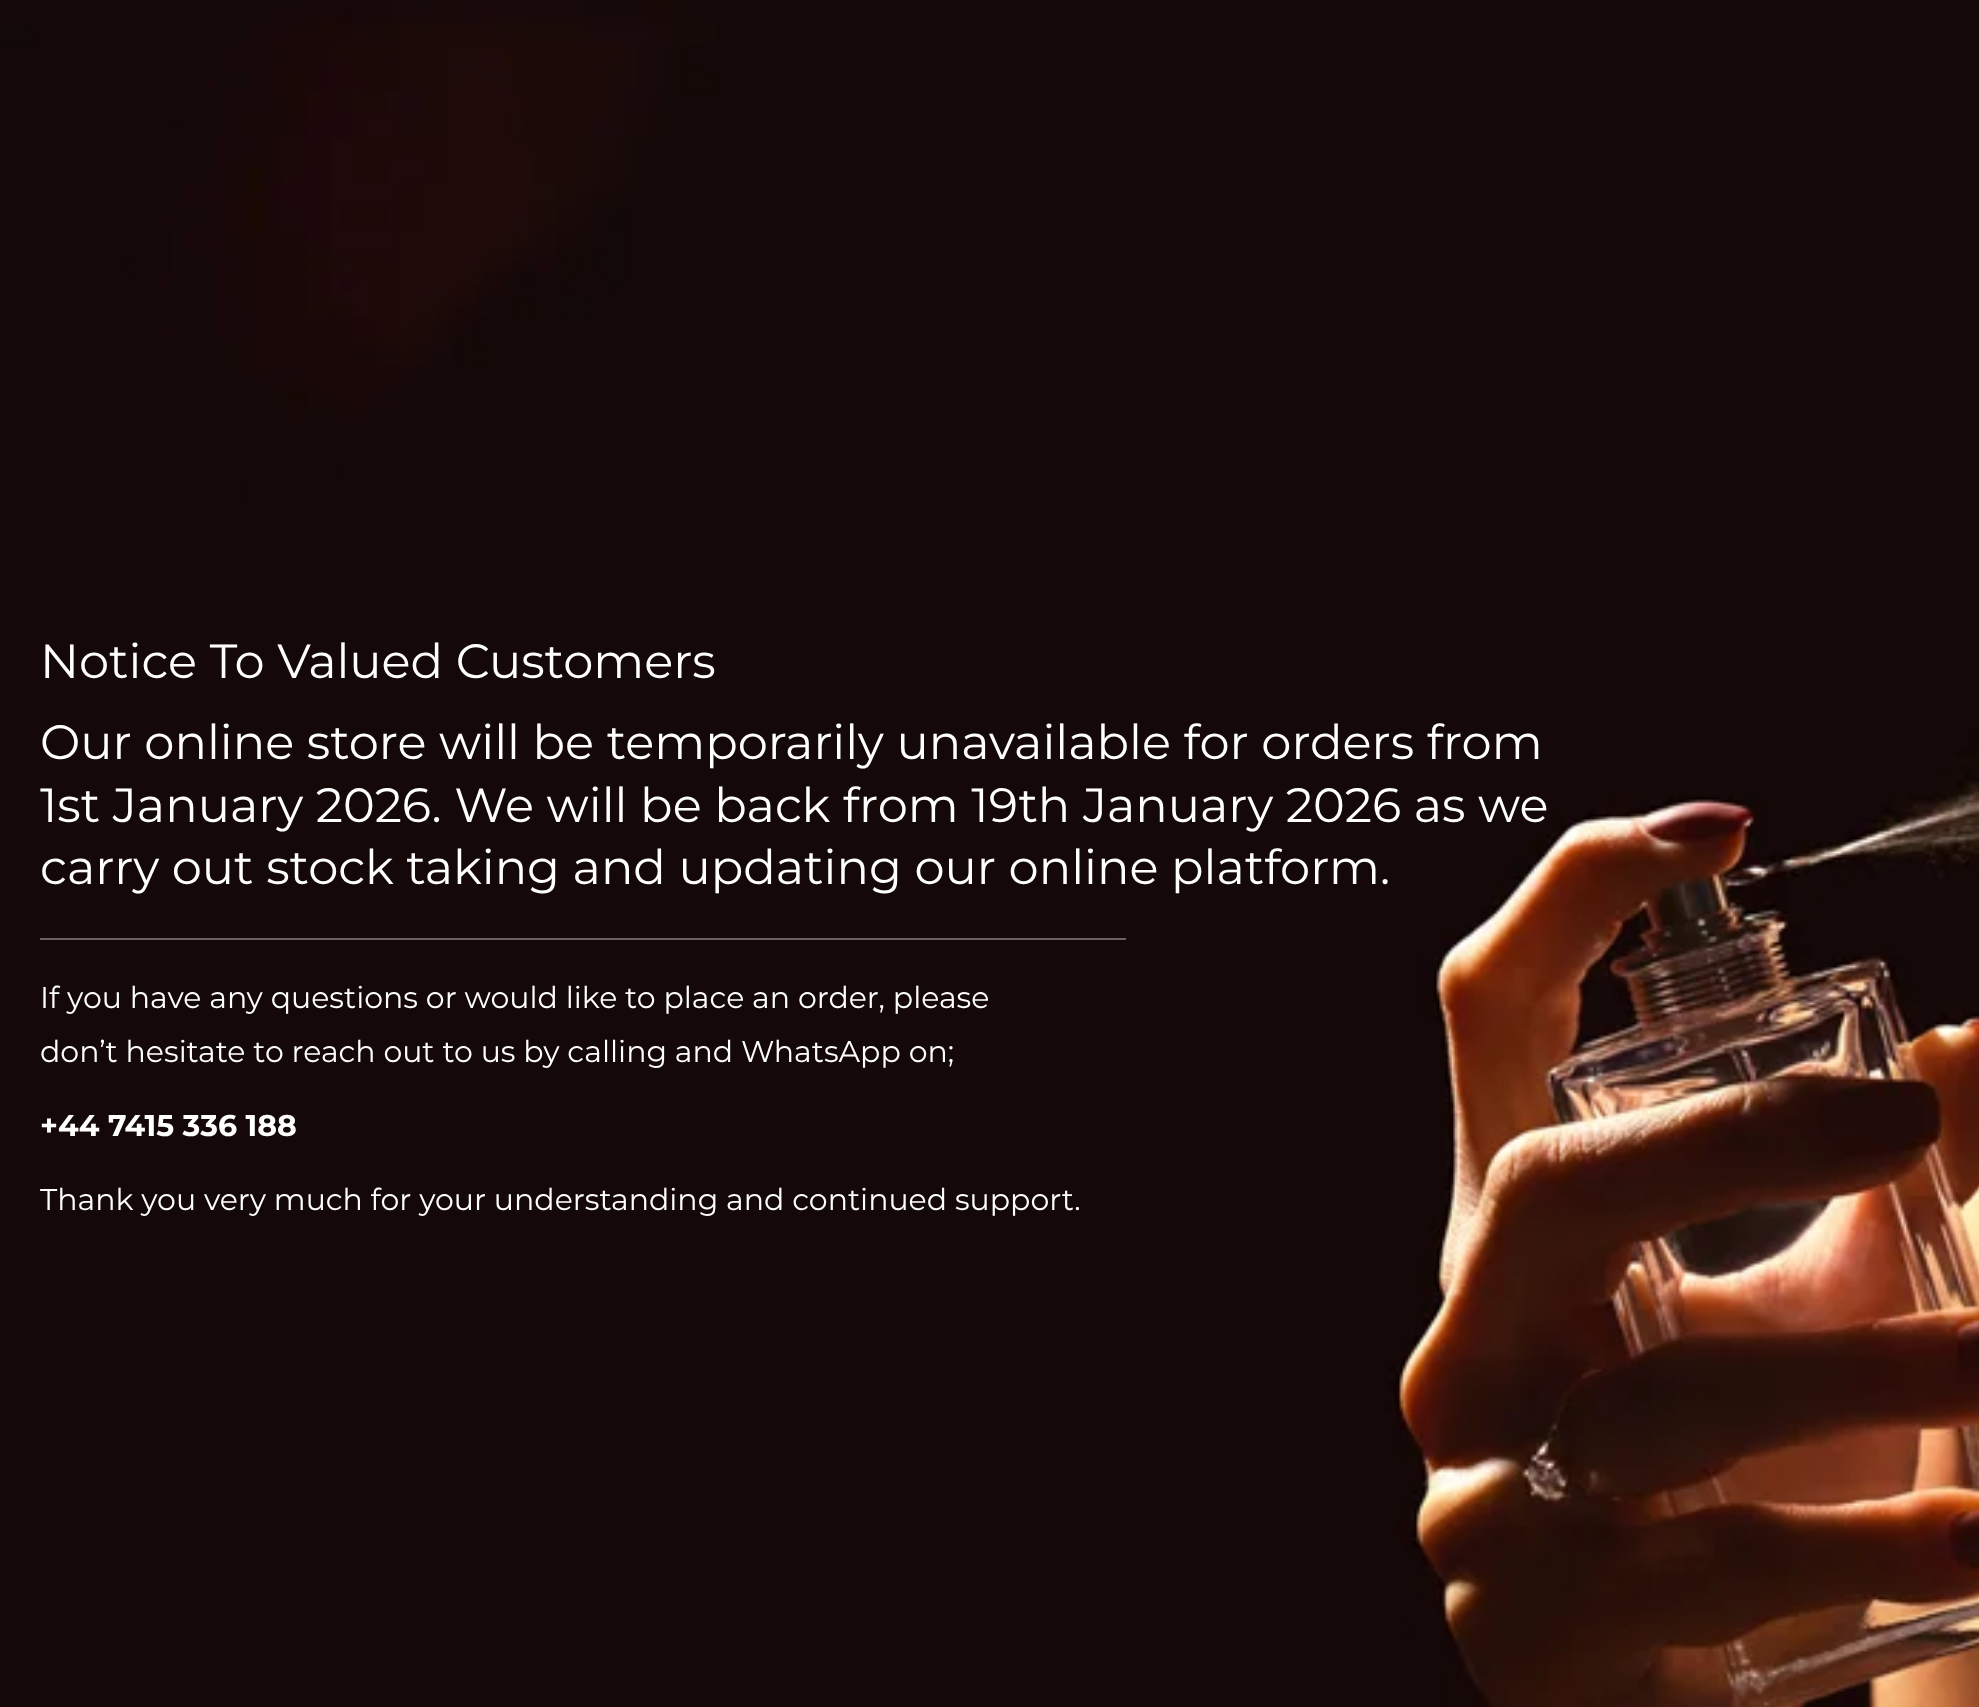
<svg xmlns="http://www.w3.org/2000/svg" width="1979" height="1707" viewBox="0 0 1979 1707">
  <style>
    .t1 { font: 48px Montserrat; fill: #fff; }
    .t2 { font: 30px Montserrat; fill: #fff; }
    .t3 { font: bold 30px Montserrat; fill: #fff; }
  </style>
  <rect width="100%" height="100%" fill="#fff"/>
  <image x="0" y="0" width="1979" height="1707" href="images/1.png"/>
  <text x="40" y="678" class="t1">Notice To Valued Customers</text>
  <text x="40" y="759" class="t1">Our online store will be temporarily unavailable for orders from</text>
  <text x="40" y="822" class="t1">1st January 2026. We will be back from 19th January 2026 as we</text>
  <text x="40" y="884" class="t1">carry out stock taking and updating our online platform.</text>
  <rect x="40" y="938" width="1086" height="2" fill="#6b6363"/>
  <text x="40" y="1008" class="t2">If you have any questions or would like to place an order, please</text>
  <text x="40" y="1062" class="t2">don’t hesitate to reach out to us by calling and WhatsApp on;</text>
  <text x="40" y="1136" class="t3">+44 7415 336 188</text>
  <text x="40" y="1210" class="t2">Thank you very much for your understanding and continued support.</text>
</svg>
